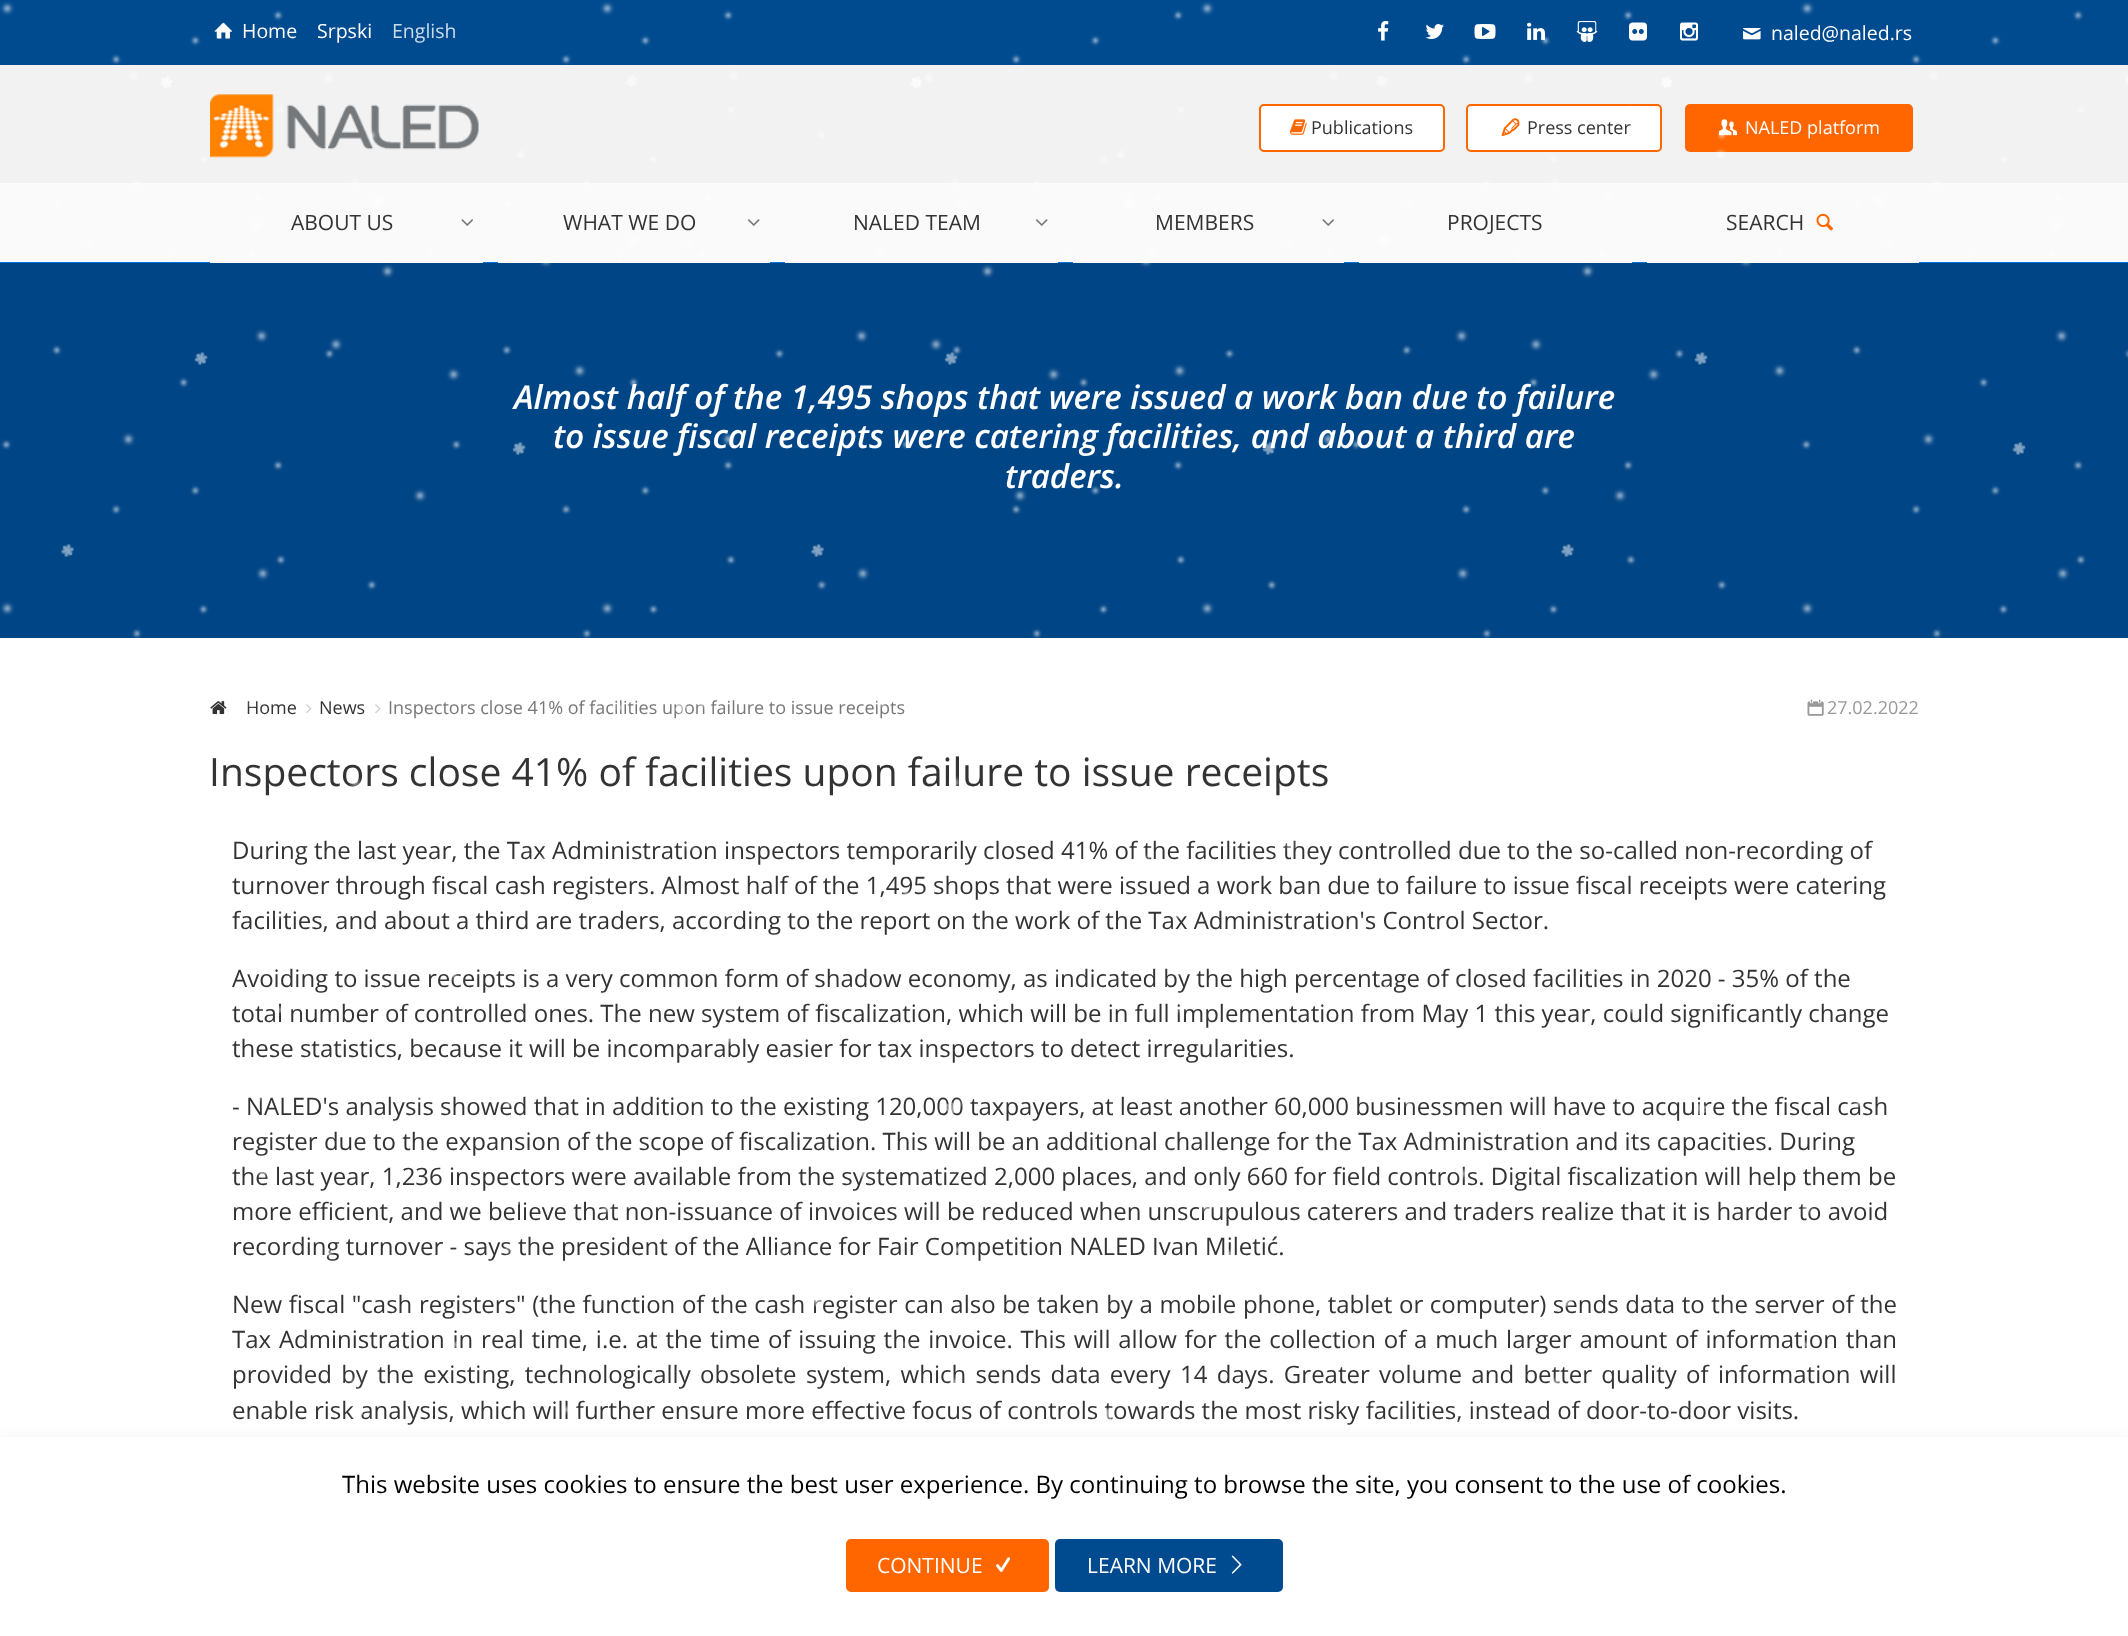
<svg xmlns="http://www.w3.org/2000/svg" width="2128" height="1636" viewBox="0 0 2128 1636">
  <style>
    .t1 { font: 19.5px Open Sans; fill: #fff; }
    .t2 { font: 19.5px Open Sans; fill: #ccdbe9; }
    .t3 { font: 18px Open Sans; fill: #333; }
    .t4 { font: 18px Open Sans; fill: #fff; }
    .t5 { font: italic 600 33px Open Sans; fill: #fff; }
    .t6 { font: 18px Open Sans; fill: #777; }
    .t7 { font: 18px Open Sans; fill: #999; }
    .t8 { font: 39px Open Sans; fill: #333; }
    .t9 { font: 24px Open Sans; fill: #333; }
    .t10 { font: 21px Open Sans; fill: #333; }
    .t11 { font: 24px Open Sans; fill: #000; }
    .t12 { font: 21px Open Sans; fill: #fff; }
  </style>
  <rect width="100%" height="100%" fill="#fff"/>
  <rect x="0" y="0" width="2128" height="65" fill="#004b90"/>
  <image x="214" y="22" width="19" height="17" href="images/2.png"/>
  <text x="242" y="38" class="t1">Home</text>
  <text x="317" y="38" class="t1">Srpski</text>
  <text x="392" y="38" class="t2">English</text>
  <image x="1378" y="21" width="11" height="20" href="images/3.png"/>
  <image x="1425" y="24" width="19" height="15" href="images/4.png"/>
  <image x="1474" y="24" width="22" height="15" href="images/5.png"/>
  <image x="1527" y="22" width="18" height="18" href="images/6.png"/>
  <image x="1576" y="21" width="22" height="21" href="images/7.png"/>
  <image x="1629" y="22" width="18" height="19" href="images/8.png"/>
  <image x="1680" y="22" width="18" height="19" href="images/9.png"/>
  <image x="1743" y="28" width="18" height="12" href="images/10.png"/>
  <text x="1771" y="40" class="t1">naled@naled.rs</text>
  <rect x="0" y="65" width="2128" height="118" fill="#f2f2f2"/>
  <image x="210" y="94" width="269" height="64" href="images/11.png"/>
  <rect x="1260" y="105" width="184" height="46" rx="4" fill="#fff" stroke="#f60" stroke-width="2"/>
  <image x="1290" y="119" width="17" height="16" href="images/12.png"/>
  <text x="1311" y="134" class="t3">Publications</text>
  <rect x="1467" y="105" width="194" height="46" rx="4" fill="#fff" stroke="#f60" stroke-width="2"/>
  <image x="1501" y="118" width="19" height="19" href="images/13.png"/>
  <text x="1527" y="134" class="t3">Press center</text>
  <rect x="1686" y="105" width="226" height="46" rx="4" fill="#f60" stroke="#f60" stroke-width="2"/>
  <image x="1719" y="119" width="18" height="17" href="images/14.png"/>
  <text x="1745" y="134" class="t4">NALED platform</text>
  <rect x="0" y="183" width="2128" height="79" fill="#fafafa"/>
  <rect x="0" y="262" width="2128" height="1" fill="#0073dd"/>
  <rect x="0" y="263" width="2128" height="375" fill="#004586"/>
  <text x="514" y="409" class="t5">Almost half of the 1,495 shops that were issued a work ban due to failure</text>
  <text x="553" y="448" class="t5">to issue fiscal receipts were catering facilities, and about a third are</text>
  <text x="1005" y="488" class="t5">traders.</text>
  <image x="210" y="701" width="17" height="13" href="images/18.png"/>
  <text x="246" y="714" class="t3">Home</text>
  <image x="306" y="704" width="6" height="10" href="images/19.png"/>
  <text x="319" y="714" class="t3">News</text>
  <image x="375" y="704" width="6" height="10" href="images/19.png"/>
  <text x="388" y="714" class="t6">Inspectors close 41% of facilities upon failure to issue receipts</text>
  <image x="1807" y="699" width="17" height="17" href="images/20.png"/>
  <text x="1827" y="714" class="t7">27.02.2022</text>
  <text x="209" y="786" class="t8">Inspectors close 41% of facilities upon failure to issue receipts</text>
  <text x="232" y="859" class="t9">During the last year, the Tax Administration inspectors temporarily closed 41% of the facilities they controlled due to the so-called non-recording of</text>
  <text x="232" y="894" class="t9">turnover through fiscal cash registers. Almost half of the 1,495 shops that were issued a work ban due to failure to issue fiscal receipts were catering</text>
  <text x="232" y="929" class="t9">facilities, and about a third are traders, according to the report on the work of the Tax Administration's Control Sector.</text>
  <text x="232" y="987" class="t9">Avoiding to issue receipts is a very common form of shadow economy, as indicated by the high percentage of closed facilities in 2020 - 35% of the</text>
  <text x="232" y="1022" class="t9">total number of controlled ones. The new system of fiscalization, which will be in full implementation from May 1 this year, could significantly change</text>
  <text x="232" y="1057" class="t9">these statistics, because it will be incomparably easier for tax inspectors to detect irregularities.</text>
  <text x="232" y="1115" class="t9">- NALED's analysis showed that in addition to the existing 120,000 taxpayers, at least another 60,000 businessmen will have to acquire the fiscal cash</text>
  <text x="232" y="1150" class="t9">register due to the expansion of the scope of fiscalization. This will be an additional challenge for the Tax Administration and its capacities. During</text>
  <text x="232" y="1185" class="t9">the last year, 1,236 inspectors were available from the systematized 2,000 places, and only 660 for field controls. Digital fiscalization will help them be</text>
  <text x="232" y="1220" class="t9">more efficient, and we believe that non-issuance of invoices will be reduced when unscrupulous caterers and traders realize that it is harder to avoid</text>
  <text x="232" y="1255" class="t9">recording turnover - says the president of the Alliance for Fair Competition NALED Ivan Miletić.</text>
  <text x="232" y="1313" word-spacing="0.35" class="t9">New fiscal "cash registers" (the function of the cash register can also be taken by a mobile phone, tablet or computer) sends data to the server of the</text>
  <text x="232" y="1348" word-spacing="1.55" class="t9">Tax Administration in real time, i.e. at the time of issuing the invoice. This will allow for the collection of a much larger amount of information than</text>
  <text x="232" y="1383" word-spacing="3.1" class="t9">provided by the existing, technologically obsolete system, which sends data every 14 days. Greater volume and better quality of information will</text>
  <text x="232" y="1419" class="t9">enable risk analysis, which will further ensure more effective focus of controls towards the most risky facilities, instead of door-to-door visits.</text>
  <image x="0" y="1" width="2128" height="1432" href="images/1.png"/>
  <rect x="210" y="262" width="273" height="1" fill="#fafafa"/>
  <text x="291" y="230" class="t10">ABOUT US</text>
  <image x="461" y="219" width="12" height="7" href="images/15.png"/>
  <rect x="498" y="262" width="272" height="1" fill="#fafafa"/>
  <text x="563" y="230" class="t10">WHAT WE DO</text>
  <image x="748" y="219" width="12" height="7" href="images/16.png"/>
  <rect x="785" y="262" width="273" height="1" fill="#fafafa"/>
  <text x="853" y="230" class="t10">NALED TEAM</text>
  <image x="1036" y="219" width="12" height="7" href="images/16.png"/>
  <rect x="1073" y="262" width="271" height="1" fill="#fafafa"/>
  <text x="1155" y="230" class="t10">MEMBERS</text>
  <image x="1322" y="219" width="12" height="7" href="images/15.png"/>
  <rect x="1359" y="262" width="273" height="1" fill="#fafafa"/>
  <text x="1447" y="230" class="t10">PROJECTS</text>
  <rect x="1647" y="262" width="272" height="1" fill="#fafafa"/>
  <text x="1726" y="230" class="t10">SEARCH</text>
  <image x="1816" y="213" width="17" height="18" href="images/17.png"/>
  <rect x="0" y="1443" width="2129" height="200" fill="#0000001a" filter="blur(9px)"/>
  <rect x="0" y="1437" width="2128" height="199" fill="#fff"/>
  <text x="342" y="1493" class="t11">This website uses cookies to ensure the best user experience. By continuing to browse the site, you consent to the use of cookies.</text>
  <rect x="847" y="1540" width="201" height="51" rx="4" fill="#f60" stroke="#f60" stroke-width="2"/>
  <text x="877" y="1573" class="t12">CONTINUE</text>
  <image x="996" y="1557" width="15" height="15" href="images/21.png"/>
  <rect x="1055" y="1539" width="228" height="53" rx="5" fill="#004b90"/>
  <text x="1087" y="1573" class="t12">LEARN MORE</text>
  <image x="1231" y="1555" width="11" height="19" href="images/22.png"/>
</svg>
